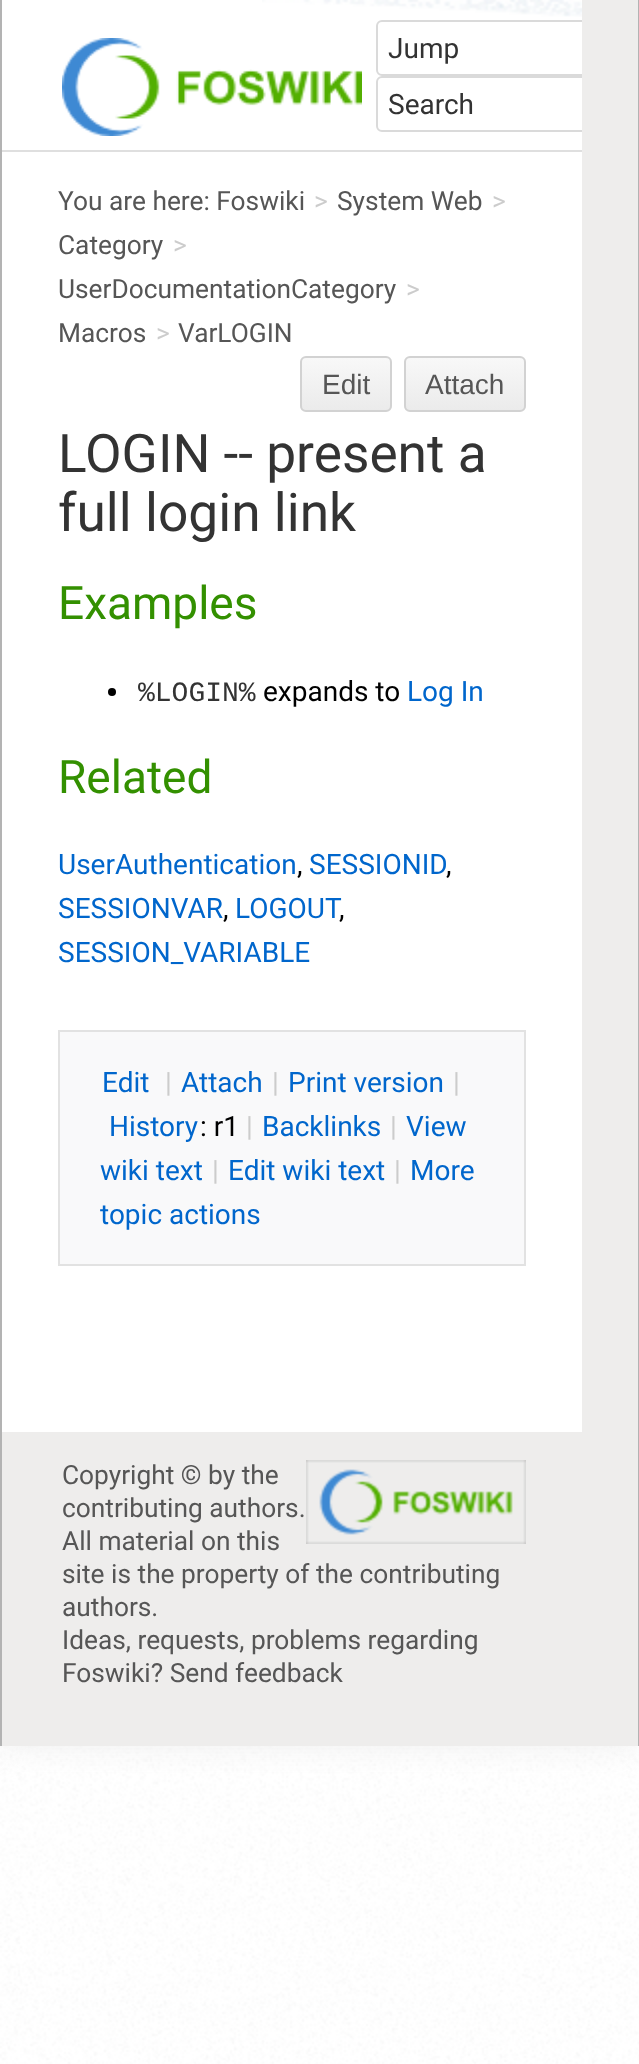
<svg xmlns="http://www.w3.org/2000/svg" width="639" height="2064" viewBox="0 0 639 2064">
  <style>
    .t1 { font: 28px Roboto; fill: #333; }
    .t2 { font: 26.3px Roboto; fill: #565656; }
    .t3 { font: 26.3px Roboto; fill: #ccc; }
    .t4 { font: 28px Liberation Sans; fill: #565656; }
    .t5 { font: 53.25px Roboto; fill: #333; }
    .t6 { font: 46px Roboto; fill: #339000; }
    .t7 { font: 28px Liberation Mono; fill: #333; }
    .t8 { font: 28px Roboto; fill: #000; }
    .t9 { font: 28px Roboto; fill: #06c; }
    .t10 { font: 28px Roboto; fill: #ccc; }
  </style>
  <defs>
    <clipPath id="clip1"><rect x="2" y="0" width="580" height="150"/></clipPath>
    <clipPath id="clip2"><rect x="300" y="356" width="92" height="56" rx="6"/></clipPath>
    <linearGradient id="g1" gradientUnits="userSpaceOnUse" x1="346" y1="358" x2="346" y2="410"><stop offset="0" stop-color="#f8f8f8"/><stop offset="1" stop-color="#ebebeb"/></linearGradient>
    <clipPath id="clip3"><rect x="404" y="356" width="122" height="56" rx="6"/></clipPath>
    <linearGradient id="g2" gradientUnits="userSpaceOnUse" x1="465" y1="358" x2="465" y2="410"><stop offset="0" stop-color="#f8f8f8"/><stop offset="1" stop-color="#ebebeb"/></linearGradient>
  </defs>
  <rect width="100%" height="100%" fill="#fff"/>
  <image x="0" y="1746" width="639" height="318" href="images/1.png"/>
  <rect x="0" y="0" width="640" height="1746" fill="#eee" filter="blur(15px)"/>
  <rect x="582" y="0" width="56" height="1746" fill="#eeedec"/>
  <rect x="638" y="0" width="1" height="1746" fill="#b3b3b3"/>
  <rect x="0" y="0" width="2" height="1746" fill="#b3b3b3"/>
  <rect x="2" y="150" width="580" height="2" fill="#dfdfdf"/>
  <rect x="2" y="0" width="580" height="150" fill="#fff"/>
  <image x="262" y="0" width="320" height="17" href="images/2.png"/>
  <image x="62" y="38" width="300" height="98" href="images/3.png"/>
  <g clip-path="url(#clip1)">
    <rect x="377" y="21" width="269" height="54" rx="5" fill="none" stroke="#dadada" stroke-width="2"/>
  </g>
  <text x="388" y="58" class="t1">Jump</text>
  <g clip-path="url(#clip1)">
    <rect x="377" y="77" width="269" height="54" rx="5" fill="none" stroke="#dadada" stroke-width="2"/>
  </g>
  <text x="388" y="114" class="t1">Search</text>
  <rect x="2" y="152" width="580" height="1280" fill="#fff"/>
  <text x="58" y="210" class="t2">You are here: Foswiki</text>
  <text x="314" y="210" class="t3">&gt;</text>
  <text x="337" y="210" class="t2">System Web</text>
  <text x="492" y="210" class="t3">&gt;</text>
  <text x="58" y="254" class="t2">Category</text>
  <text x="173" y="254" class="t3">&gt;</text>
  <text x="58" y="298" class="t2">UserDocumentationCategory</text>
  <text x="406" y="298" class="t3">&gt;</text>
  <text x="58" y="342" class="t2">Macros</text>
  <text x="156" y="342" class="t3">&gt;</text>
  <text x="178" y="342" class="t2">VarLOGIN</text>
  <g clip-path="url(#clip2)">
    <rect x="300" y="358" width="92" height="52" fill="url(#g1)"/>
  </g>
  <rect x="301" y="357" width="90" height="54" rx="5" fill="none" stroke="#d2d2d2" stroke-width="2"/>
  <text x="322" y="394" class="t4">Edit</text>
  <g clip-path="url(#clip3)">
    <rect x="404" y="358" width="122" height="52" fill="url(#g2)"/>
  </g>
  <rect x="405" y="357" width="120" height="54" rx="5" fill="none" stroke="#d2d2d2" stroke-width="2"/>
  <text x="425" y="394" class="t4">Attach</text>
  <text x="58" y="472" class="t5">LOGIN -- present a</text>
  <text x="58" y="531" class="t5">full login link</text>
  <text x="58" y="619" class="t6">Examples</text>
  <circle cx="112" cy="692" r="4" fill="#000"/>
  <text x="138" y="701" class="t7">%LOGIN%</text>
  <text x="263" y="701" class="t8">expands to</text>
  <text x="407" y="701" class="t9">Log In</text>
  <text x="58" y="793" class="t6">Related</text>
  <text x="58" y="874" class="t9">UserAuthentication</text>
  <text x="297" y="874" class="t8">,</text>
  <text x="309" y="874" class="t9">SESSIONID</text>
  <text x="446" y="874" class="t8">,</text>
  <text x="58" y="918" class="t9">SESSIONVAR</text>
  <text x="223" y="918" class="t8">,</text>
  <text x="235" y="918" class="t9">LOGOUT</text>
  <text x="339" y="918" class="t8">,</text>
  <text x="58" y="962" class="t9">SESSION_VARIABLE</text>
  <rect x="59" y="1031" width="466" height="234" fill="#f9f9fa" stroke="#e2e2e2" stroke-width="2"/>
  <text x="102" y="1092" class="t9">Edit</text>
  <text x="165" y="1092" class="t10">|</text>
  <text x="181" y="1092" class="t9">Attach</text>
  <text x="272" y="1092" class="t10">|</text>
  <text x="288" y="1092" class="t9">Print version</text>
  <text x="453" y="1092" class="t10">|</text>
  <text x="109" y="1136" class="t9">History</text>
  <text x="200" y="1136" class="t8">: r1</text>
  <text x="246" y="1136" class="t10">|</text>
  <text x="262" y="1136" class="t9">Backlinks</text>
  <text x="390" y="1136" class="t10">|</text>
  <text x="406" y="1136" class="t9">View</text>
  <text x="100" y="1180" class="t9">wiki text</text>
  <text x="212" y="1180" class="t10">|</text>
  <text x="228" y="1180" class="t9">Edit wiki text</text>
  <text x="394" y="1180" class="t10">|</text>
  <text x="410" y="1180" class="t9">More</text>
  <text x="100" y="1224" class="t9">topic actions</text>
  <rect x="2" y="1432" width="580" height="314" fill="#eeedec"/>
  <text x="62" y="1484" class="t2">Copyright © by the</text>
  <image x="306" y="1460" width="220" height="84" href="images/4.png"/>
  <text x="62" y="1517" class="t2">contributing authors.</text>
  <text x="62" y="1550" class="t2">All material on this</text>
  <text x="62" y="1583" class="t2">site is the property of the contributing</text>
  <text x="62" y="1616" class="t2">authors.</text>
  <text x="62" y="1649" class="t2">Ideas, requests, problems regarding</text>
  <text x="62" y="1682" class="t2">Foswiki? Send feedback</text>
</svg>
